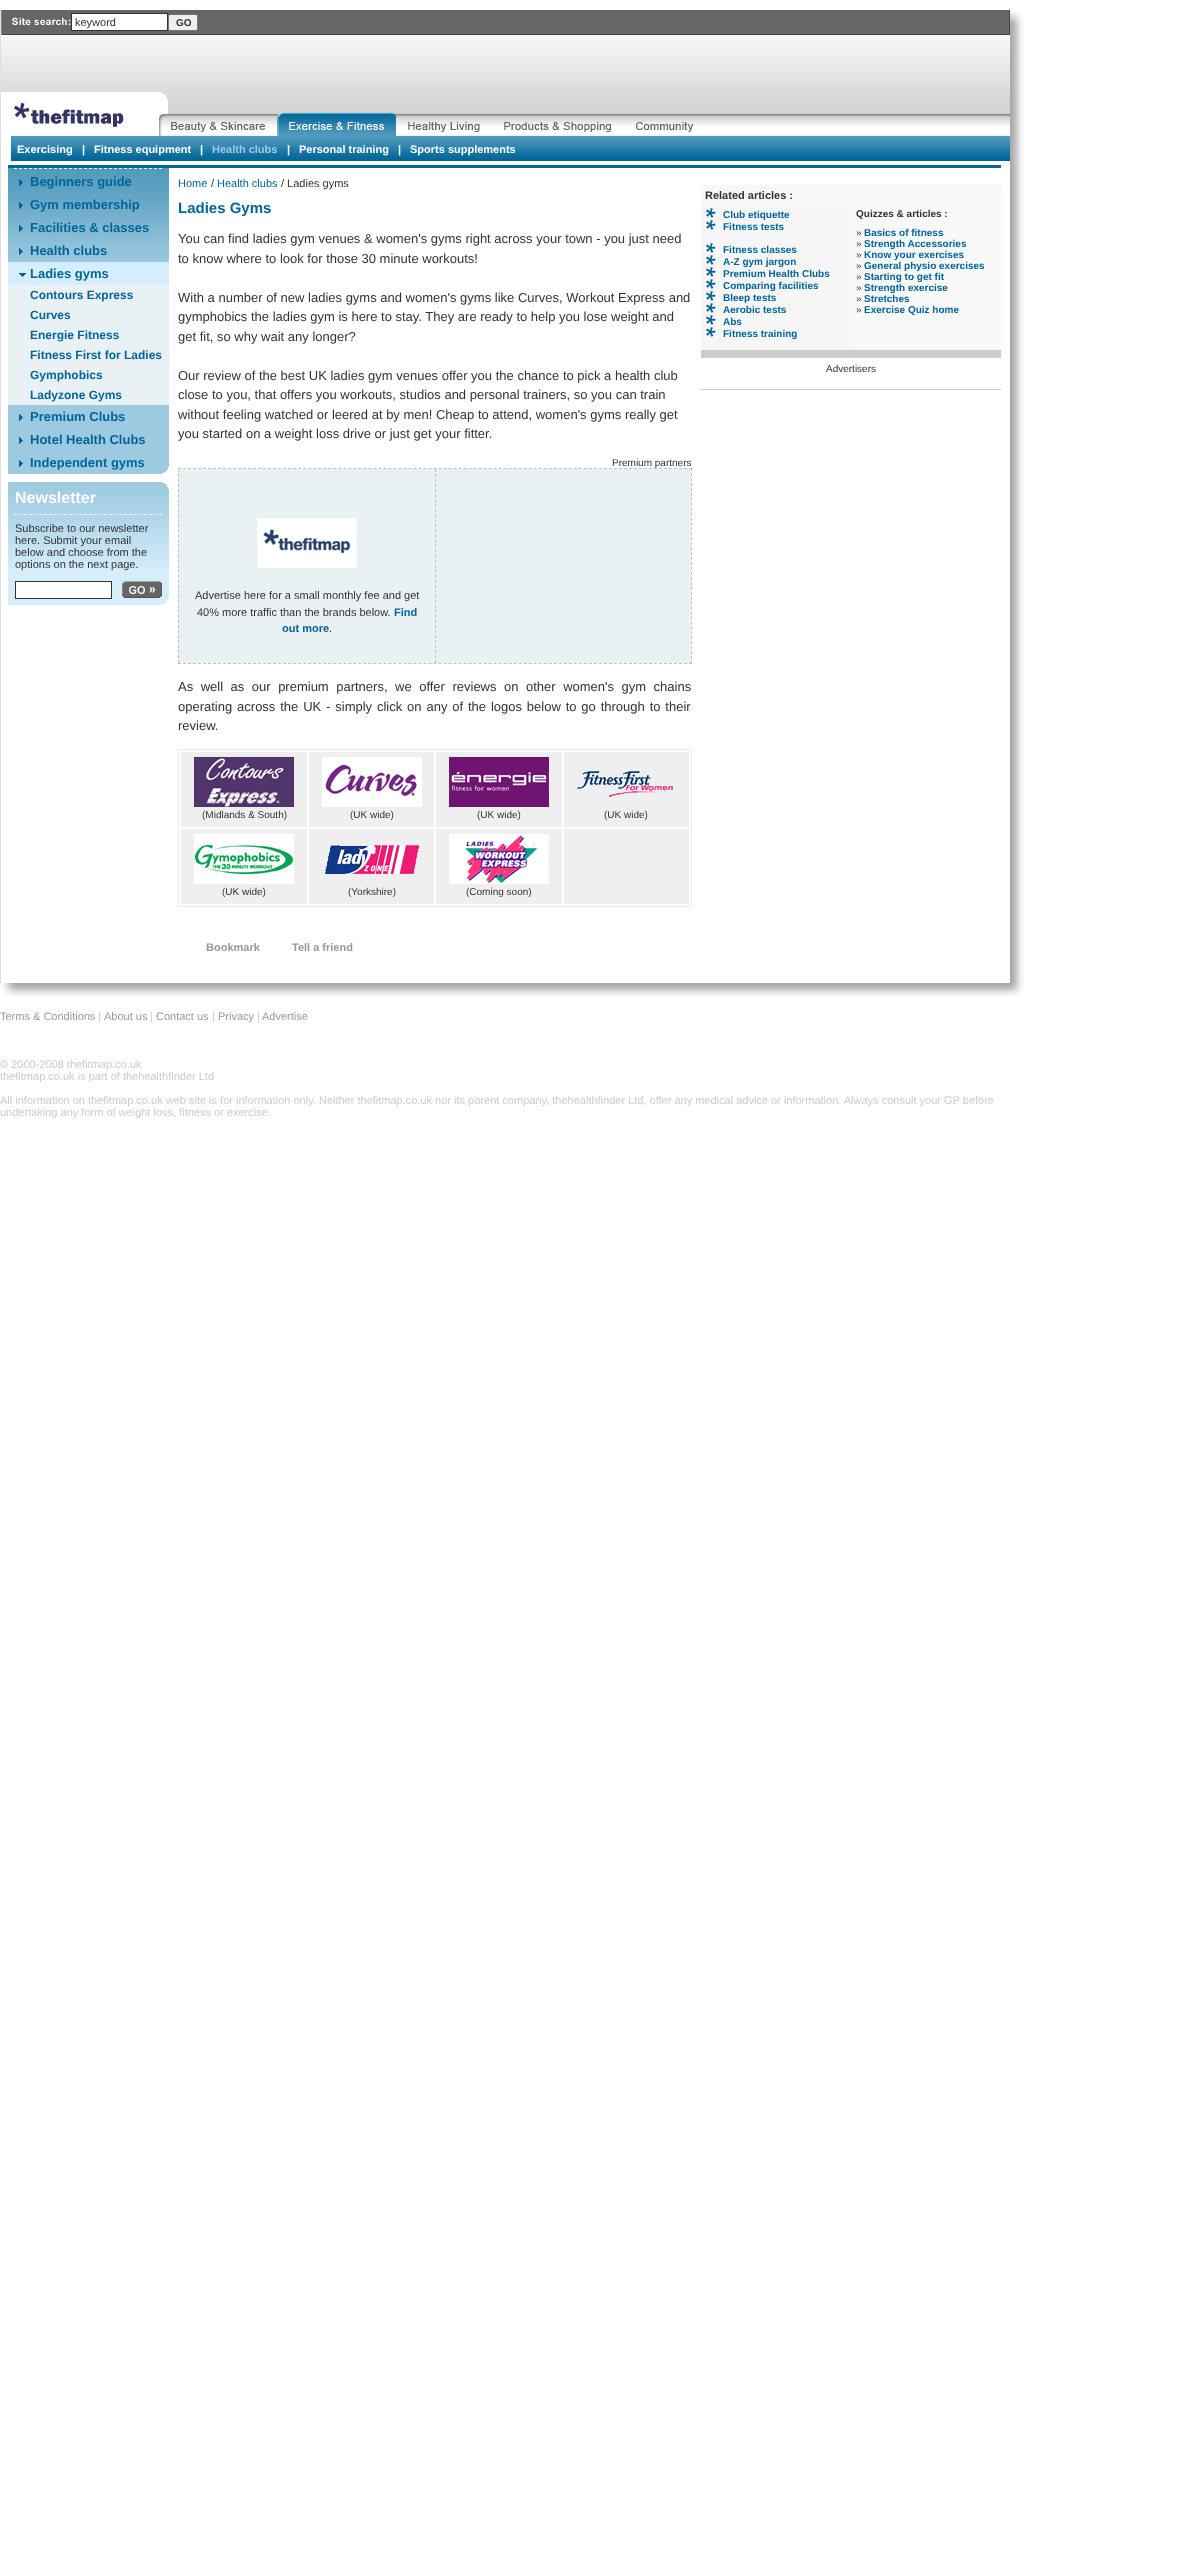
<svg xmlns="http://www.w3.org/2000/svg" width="1179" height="2565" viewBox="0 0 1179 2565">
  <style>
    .t1 { font: 11px Liberation Sans; fill: #333; }
    .t2 { font: bold 10px Liberation Sans; fill: #333; }
    .t3 { font: bold 11px Liberation Sans; fill: #fff; }
    .t4 { font: bold 11px Liberation Sans; fill: #9dcae1; }
    .t5 { font: bold 13px Liberation Sans; fill: #069; }
    .t6 { font: bold 12px Liberation Sans; fill: #069; }
    .t7 { font: bold 16px Liberation Sans; fill: #fff; }
    .t8 { font: 11px Liberation Sans; fill: #069; }
    .t9 { font: bold 15px Liberation Sans; fill: #069; }
    .t10 { font: 13px Liberation Sans; fill: #333; }
    .t11 { font: 10px Liberation Sans; fill: #333; }
    .t12 { font: bold 11px Liberation Sans; fill: #069; }
    .t13 { font: bold 11px Liberation Sans; fill: #999; }
    .t14 { font: bold 11px Liberation Sans; fill: #333; }
    .t15 { font: bold 10px Liberation Sans; fill: #069; }
    .t16 { font: 11px Liberation Sans; fill: #999; }
    .t17 { font: 11px Liberation Sans; fill: #ccc; }
  </style>
  <rect width="100%" height="100%" fill="#fff"/>
  <rect x="0" y="10" width="1" height="973" fill="#dfdfdf"/>
  <rect x="2" y="10" width="1007" height="24" fill="#666"/>
  <rect x="1009" y="10" width="1" height="25" fill="#454545"/>
  <rect x="1" y="34" width="1009" height="1" fill="#454545"/>
  <rect x="1" y="10" width="1" height="25" fill="#888"/>
  <image x="12" y="17" width="59" height="8" href="images/1.png"/>
  <rect x="71.5" y="13.5" width="96" height="17" fill="#fff" stroke="#333"/>
  <text x="75" y="26" class="t1">keyword</text>
  <rect x="168.5" y="14.5" width="29" height="16" rx="1.5" fill="#efefef" stroke="#767676"/>
  <text x="176" y="26" class="t2">GO</text>
  <image x="1" y="35" width="1009" height="77" href="images/2.png"/>
  <image x="1" y="92" width="158" height="20" href="images/3.png"/>
  <image x="159" y="92" width="9" height="20" href="images/4.png"/>
  <image x="168" y="112" width="842" height="24" href="images/5.png"/>
  <image x="1" y="112" width="158" height="24" href="images/6.png"/>
  <image x="159" y="112" width="9" height="24" href="images/7.png"/>
  <image x="163" y="114" width="102" height="18" href="images/8.png"/>
  <image x="277" y="112" width="119" height="24" href="images/9.png"/>
  <image x="408" y="122" width="72" height="10" href="images/10.png"/>
  <image x="504" y="122" width="107" height="10" href="images/11.png"/>
  <image x="636" y="122" width="58" height="10" href="images/12.png"/>
  <image x="11" y="136" width="999" height="25" href="images/13.png"/>
  <text x="17" y="153" class="t3">Exercising</text>
  <text x="82" y="153" class="t3">|</text>
  <text x="94" y="153" class="t3">Fitness equipment</text>
  <text x="200" y="153" class="t3">|</text>
  <text x="212" y="153" class="t4">Health clubs</text>
  <text x="287" y="153" class="t3">|</text>
  <text x="299" y="153" class="t3">Personal training</text>
  <text x="398" y="153" class="t3">|</text>
  <text x="410" y="153" class="t3">Sports supplements</text>
  <rect x="8" y="165" width="993" height="3" fill="#02689a"/>
  <rect x="8" y="260" width="161" height="214" fill="#9dcae1"/>
  <image x="8" y="170" width="161" height="90" href="images/14.png"/>
  <image x="162" y="467" width="7" height="7" href="images/15.png"/>
  <image x="19" y="179" width="4" height="7" href="images/16.png"/>
  <text x="30" y="186" class="t5">Beginners guide</text>
  <image x="19" y="202" width="4" height="7" href="images/17.png"/>
  <text x="30" y="209" class="t5">Gym membership</text>
  <image x="19" y="225" width="4" height="7" href="images/18.png"/>
  <text x="30" y="232" class="t5">Facilities &amp; classes</text>
  <image x="19" y="248" width="4" height="7" href="images/19.png"/>
  <text x="30" y="255" class="t5">Health clubs</text>
  <rect x="8" y="262" width="161" height="23" fill="#d6eefb"/>
  <image x="19" y="273" width="7" height="4" href="images/20.png"/>
  <text x="30" y="278" class="t5">Ladies gyms</text>
  <rect x="8" y="285" width="161" height="120" fill="#e9f1f5"/>
  <text x="30" y="299" class="t6">Contours Express</text>
  <text x="30" y="319" class="t6">Curves</text>
  <text x="30" y="339" class="t6">Energie Fitness</text>
  <text x="30" y="359" class="t6">Fitness First for Ladies</text>
  <text x="30" y="379" class="t6">Gymphobics</text>
  <text x="30" y="399" class="t6">Ladyzone Gyms</text>
  <image x="19" y="414" width="4" height="7" href="images/21.png"/>
  <text x="30" y="421" class="t5">Premium Clubs</text>
  <image x="19" y="437" width="4" height="7" href="images/21.png"/>
  <text x="30" y="444" class="t5">Hotel Health Clubs</text>
  <image x="19" y="460" width="4" height="7" href="images/21.png"/>
  <text x="30" y="467" class="t5">Independent gyms</text>
  <rect x="8" y="569" width="161" height="36" fill="#d6eefb"/>
  <image x="8" y="482" width="161" height="87" href="images/22.png"/>
  <image x="162" y="598" width="7" height="7" href="images/23.png"/>
  <image x="162" y="482" width="7" height="7" href="images/24.png"/>
  <text x="15" y="503" class="t7">Newsletter</text>
  <image x="14" y="514" width="148" height="1" href="images/25.png"/>
  <text x="15" y="532" class="t1">Subscribe to our newsletter</text>
  <text x="15" y="544" class="t1">here. Submit your email</text>
  <text x="15" y="556" class="t1">below and choose from the</text>
  <text x="15" y="568" class="t1">options on the next page.</text>
  <rect x="15.5" y="581.5" width="96" height="17" fill="#fff" stroke="#333"/>
  <image x="122" y="581" width="40" height="17" href="images/26.png"/>
  <rect x="8" y="168" width="161" height="2" fill="#539bbe"/>
  <image x="14" y="168" width="148" height="1" href="images/27.png"/>
  <text x="178" y="187" class="t8">Home</text>
  <text x="211" y="187" class="t1">/</text>
  <text x="217" y="187" class="t8">Health clubs</text>
  <text x="281" y="187" class="t1">/ Ladies gyms</text>
  <text x="178" y="213" class="t9">Ladies Gyms</text>
  <text x="178" y="243" class="t10">You can find ladies gym venues &amp; women's gyms right across your town - you just need</text>
  <text x="178" y="263" class="t10">to know where to look for those 30 minute workouts!</text>
  <text x="178" y="302" class="t10">With a number of new ladies gyms and women's gyms like Curves, Workout Express and</text>
  <text x="178" y="321" class="t10">gymphobics the ladies gym is here to stay. They are ready to help you lose weight and</text>
  <text x="178" y="341" class="t10">get fit, so why wait any longer?</text>
  <text x="178" y="380" class="t10">Our review of the best UK ladies gym venues offer you the chance to pick a health club</text>
  <text x="178" y="399" class="t10">close to you, that offers you workouts, studios and personal trainers, so you can train</text>
  <text x="178" y="419" class="t10">without feeling watched or leered at by men! Cheap to attend, women's gyms really get</text>
  <text x="178" y="438" class="t10">you started on a weight loss drive or just get your fitter.</text>
  <path d="M178 468.5H692" fill="none" stroke="#c0c0c0" stroke-dasharray="3 2.01"/>
  <path d="M691.5 468V664" fill="none" stroke="#c0c0c0" stroke-dasharray="3 1.95"/>
  <text x="612" y="466" class="t11">Premium partners</text>
  <path d="M178 663.5H692" fill="none" stroke="#c0c0c0" stroke-dasharray="3 2.01"/>
  <rect x="178" y="469" width="513" height="194" fill="#e9f1f5"/>
  <path d="M178.5 469V663" fill="none" stroke="#c0c0c0" stroke-dasharray="3 2.03"/>
  <image x="257" y="518" width="100" height="50" href="images/28.png"/>
  <text x="195" y="599" class="t1">Advertise here for a small monthly fee and get</text>
  <text x="197" y="616" class="t1">40% more traffic than the brands below.</text>
  <text x="394" y="616" class="t12">Find</text>
  <text x="282" y="632" class="t12">out more</text>
  <text x="329" y="632" class="t1">.</text>
  <path d="M435.5 469V663" fill="none" stroke="#c0c0c0" stroke-dasharray="3 2.03"/>
  <text x="178" y="691" word-spacing="3.9" class="t10">As well as our premium partners, we offer reviews on other women's gym chains</text>
  <text x="178" y="711" word-spacing="1.25" class="t10">operating across the UK - simply click on any of the logos below to go through to their</text>
  <text x="178" y="730" class="t10">review.</text>
  <rect x="178.5" y="749.5" width="513" height="157" fill="none" stroke="#ebebeb"/>
  <rect x="181" y="752" width="126" height="75" fill="#efefef"/>
  <image x="194" y="757" width="100" height="50" href="images/29.png"/>
  <text x="202" y="818" class="t11">(Midlands &amp; South)</text>
  <rect x="309" y="752" width="125" height="75" fill="#efefef"/>
  <image x="322" y="757" width="100" height="50" href="images/30.png"/>
  <text x="350" y="818" class="t11">(UK wide)</text>
  <rect x="436" y="752" width="126" height="75" fill="#efefef"/>
  <image x="449" y="757" width="100" height="50" href="images/31.png"/>
  <text x="477" y="818" class="t11">(UK wide)</text>
  <rect x="564" y="752" width="125" height="75" fill="#efefef"/>
  <image x="577" y="771" width="96" height="26" href="images/32.png"/>
  <text x="604" y="818" class="t11">(UK wide)</text>
  <rect x="181" y="829" width="126" height="75" fill="#efefef"/>
  <image x="194" y="834" width="100" height="50" href="images/33.png"/>
  <text x="222" y="895" class="t11">(UK wide)</text>
  <rect x="309" y="829" width="125" height="75" fill="#efefef"/>
  <image x="325" y="845" width="94" height="29" href="images/34.png"/>
  <text x="348" y="895" class="t11">(Yorkshire)</text>
  <rect x="436" y="829" width="126" height="75" fill="#efefef"/>
  <image x="449" y="834" width="100" height="50" href="images/35.png"/>
  <text x="466" y="895" class="t11">(Coming soon)</text>
  <rect x="564" y="829" width="125" height="75" fill="#efefef"/>
  <text x="206" y="951" class="t13">Bookmark</text>
  <text x="292" y="951" class="t13">Tell a friend</text>
  <rect x="701" y="185" width="300" height="23" fill="#f8f8f8"/>
  <text x="705" y="199" class="t14">Related articles :</text>
  <rect x="701" y="208" width="150" height="142" fill="#f6f6f6"/>
  <image x="706" y="208" width="10" height="10" href="images/36.png"/>
  <text x="723" y="218" class="t15">Club etiquette</text>
  <image x="706" y="220" width="10" height="10" href="images/36.png"/>
  <text x="723" y="230" class="t15">Fitness tests</text>
  <image x="706" y="243" width="10" height="10" href="images/36.png"/>
  <text x="723" y="253" class="t15">Fitness classes</text>
  <image x="706" y="255" width="10" height="10" href="images/36.png"/>
  <text x="723" y="265" class="t15">A-Z gym jargon</text>
  <image x="706" y="267" width="10" height="10" href="images/36.png"/>
  <text x="723" y="277" class="t15">Premium Health Clubs</text>
  <image x="706" y="279" width="10" height="10" href="images/36.png"/>
  <text x="723" y="289" class="t15">Comparing facilities</text>
  <image x="706" y="291" width="10" height="10" href="images/36.png"/>
  <text x="723" y="301" class="t15">Bleep tests</text>
  <image x="706" y="303" width="10" height="10" href="images/36.png"/>
  <text x="723" y="313" class="t15">Aerobic tests</text>
  <image x="706" y="315" width="10" height="10" href="images/36.png"/>
  <text x="723" y="325" class="t15">Abs</text>
  <image x="706" y="327" width="10" height="10" href="images/36.png"/>
  <text x="723" y="337" class="t15">Fitness training</text>
  <rect x="851" y="208" width="150" height="142" fill="#f8f8f8"/>
  <text x="856" y="217" class="t2">Quizzes &amp; articles :</text>
  <text x="856" y="236" class="t11">»</text>
  <text x="864" y="236" class="t15">Basics of fitness</text>
  <text x="856" y="247" class="t11">»</text>
  <text x="864" y="247" class="t15">Strength Accessories</text>
  <text x="856" y="258" class="t11">»</text>
  <text x="864" y="258" class="t15">Know your exercises</text>
  <text x="856" y="269" class="t11">»</text>
  <text x="864" y="269" class="t15">General physio exercises</text>
  <text x="856" y="280" class="t11">»</text>
  <text x="864" y="280" class="t15">Starting to get fit</text>
  <text x="856" y="291" class="t11">»</text>
  <text x="864" y="291" class="t15">Strength exercise</text>
  <text x="856" y="302" class="t11">»</text>
  <text x="864" y="302" class="t15">Stretches</text>
  <text x="856" y="313" class="t11">»</text>
  <text x="864" y="313" class="t15">Exercise Quiz home</text>
  <rect x="701" y="350" width="300" height="8" fill="#ccc"/>
  <rect x="701" y="389" width="300" height="1" fill="#ccc"/>
  <text x="826" y="372" class="t11">Advertisers</text>
  <image x="1010" y="24" width="14" height="959" href="images/37.png"/>
  <image x="1010" y="11" width="14" height="13" href="images/38.png"/>
  <image x="15" y="983" width="995" height="14" href="images/39.png"/>
  <image x="1" y="983" width="14" height="14" href="images/40.png"/>
  <image x="1010" y="983" width="14" height="14" href="images/41.png"/>
  <text x="0" y="1020" class="t16">Terms &amp; Conditions</text>
  <text x="98" y="1020" class="t17">|</text>
  <text x="104" y="1020" class="t16">About us</text>
  <text x="150" y="1020" class="t17">|</text>
  <text x="156" y="1020" class="t16">Contact us</text>
  <text x="212" y="1020" class="t17">|</text>
  <text x="218" y="1020" class="t16">Privacy</text>
  <text x="257" y="1020" class="t17">|</text>
  <text x="262" y="1020" class="t16">Advertise</text>
  <text x="0" y="1068" class="t17">© 2000-2008 thefitmap.co.uk</text>
  <text x="0" y="1080" class="t17">thefitmap.co.uk is part of thehealthfinder Ltd</text>
  <text x="0" y="1104" class="t17">All information on thefitmap.co.uk web site is for information only. Neither thefitmap.co.uk nor its parent company, thehealthfinder Ltd, offer any medical advice or information. Always consult your GP before</text>
  <text x="0" y="1116" class="t17">undertaking any form of weight loss, fitness or exercise.</text>
</svg>
